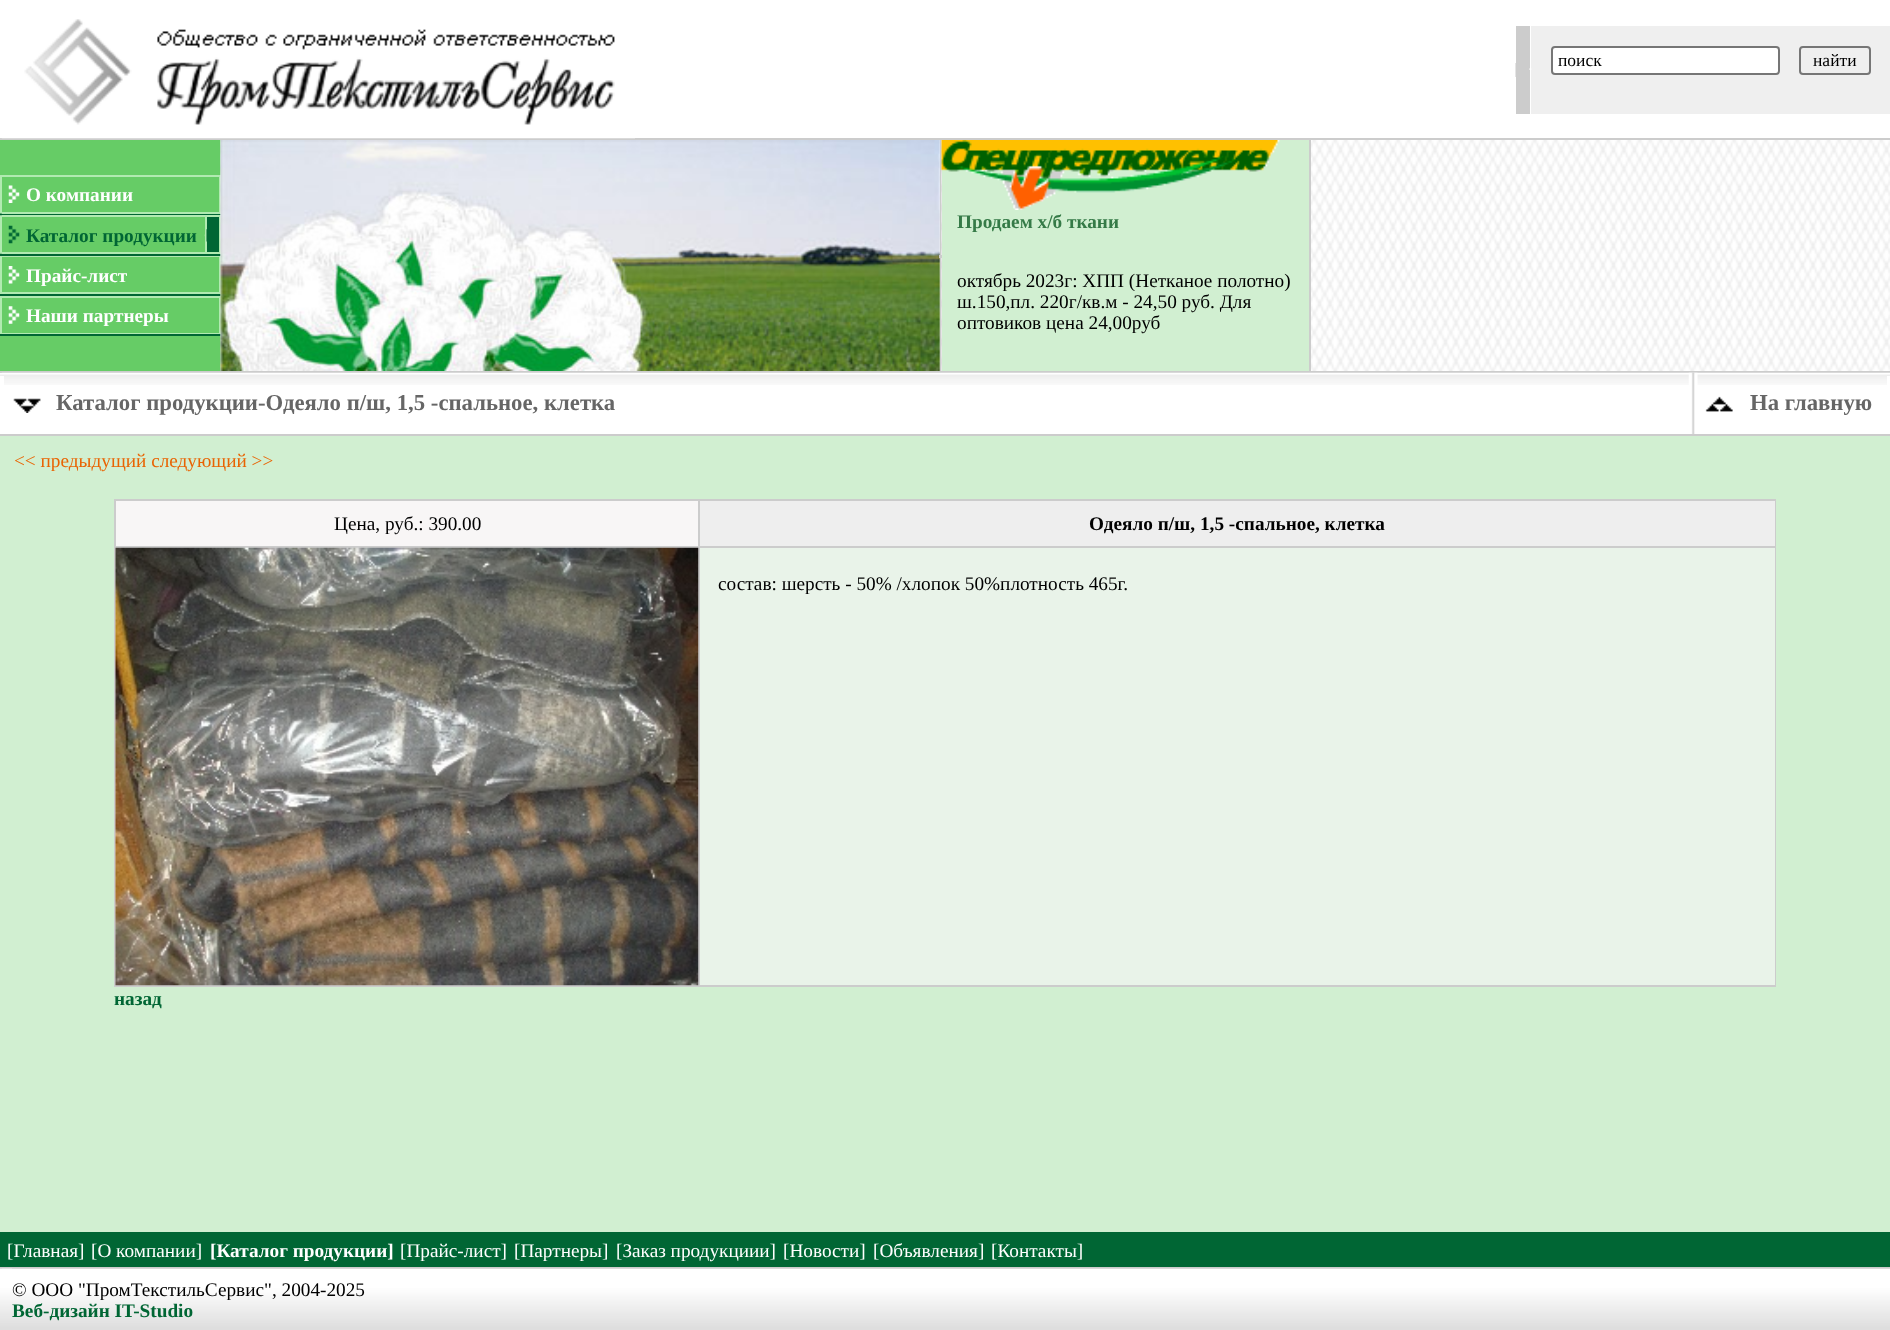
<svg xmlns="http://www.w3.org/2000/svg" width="1890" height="1330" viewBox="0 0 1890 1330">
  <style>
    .t1 { font: 17.5px Liberation Serif; fill: #000; }
    .t2 { font: bold 19.25px Liberation Serif; fill: #fff; }
    .t3 { font: bold 19.25px Liberation Serif; fill: #006634; }
    .t4 { font: bold 19.25px Liberation Serif; fill: #357a47; }
    .t5 { font: 19.25px Liberation Serif; fill: #000; }
    .t6 { font: bold 22.75px Liberation Serif; fill: #666; }
    .t7 { font: 19.25px Liberation Serif; fill: #e96302; }
    .t8 { font: bold 19.25px Liberation Serif; fill: #000; }
    .t9 { font: 19.25px Liberation Serif; fill: #fff; }
  </style>
  <rect width="100%" height="100%" fill="#fff"/>
  <rect x="0" y="138" width="1890" height="2" fill="#ccc"/>
  <image x="0" y="19" width="635" height="120" href="images/1.png"/>
  <rect x="1516" y="26" width="14" height="88" fill="#ccc"/>
  <rect x="1515" y="63" width="1" height="14" fill="#e5e5e5"/>
  <rect x="1531" y="26" width="359" height="88" fill="#efefef"/>
  <rect x="1552" y="47" width="227" height="27" rx="3" fill="#fff" stroke="#767676" stroke-width="2"/>
  <text x="1558" y="66" class="t1">поиск</text>
  <rect x="1800" y="47" width="70" height="27" rx="3" fill="none" stroke="#767676" stroke-width="2"/>
  <text x="1813" y="66" class="t1">найти</text>
  <image x="1529" y="68" width="3" height="2" href="images/2.png"/>
  <image x="0" y="138" width="2" height="1" href="images/3.png"/>
  <rect x="0" y="140" width="221" height="231" fill="#6c6"/>
  <rect x="0" y="175" width="221" height="39" fill="#b1eab1"/>
  <rect x="2" y="177" width="217" height="35" fill="#6c6"/>
  <image x="8" y="185" width="12" height="18" href="images/4.png"/>
  <text x="26" y="201" class="t2">О компании</text>
  <rect x="0" y="214" width="221" height="1" fill="#006634"/>
  <rect x="0" y="215" width="221" height="39" fill="#b1eab1"/>
  <image x="0" y="213" width="2" height="3" href="images/5.png"/>
  <rect x="2" y="217" width="203" height="35" fill="#6c6"/>
  <image x="8" y="225" width="12" height="19" href="images/6.png"/>
  <text x="26" y="242" class="t3">Каталог продукции</text>
  <image x="204" y="234" width="1" height="3" href="images/7.png"/>
  <rect x="207" y="217" width="12" height="35" fill="#006634"/>
  <image x="206" y="229" width="1" height="13" href="images/8.png"/>
  <rect x="0" y="254" width="221" height="2" fill="#006634"/>
  <image x="0" y="253" width="2" height="1" href="images/9.png"/>
  <rect x="0" y="256" width="221" height="38" fill="#b1eab1"/>
  <rect x="2" y="257" width="217" height="35" fill="#6c6"/>
  <image x="8" y="266" width="12" height="18" href="images/10.png"/>
  <text x="26" y="282" class="t2">Прайс-лист</text>
  <rect x="0" y="294" width="221" height="2" fill="#006634"/>
  <rect x="0" y="296" width="221" height="38" fill="#b1eab1"/>
  <rect x="2" y="298" width="217" height="35" fill="#6c6"/>
  <image x="8" y="306" width="12" height="18" href="images/11.png"/>
  <text x="26" y="322" class="t2">Наши партнеры</text>
  <rect x="0" y="334" width="221" height="2" fill="#006634"/>
  <image x="220" y="140" width="720" height="231" href="images/12.png"/>
  <image x="220" y="140" width="720" height="231" href="images/13.png"/>
  <rect x="940" y="140" width="2" height="231" fill="#ccc"/>
  <image x="941" y="140" width="949" height="231" href="images/14.png"/>
  <rect x="939" y="255" width="3" height="3" fill="#ccc"/>
  <rect x="942" y="140" width="367" height="231" fill="#d1efd1"/>
  <image x="941" y="140" width="339" height="70" href="images/15.png"/>
  <rect x="1309" y="140" width="2" height="231" fill="#ccc"/>
  <text x="957" y="228" class="t4">Продаем х/б ткани</text>
  <text x="957" y="287" class="t5">октябрь 2023г: ХПП (Нетканое полотно)</text>
  <text x="957" y="308" class="t5">ш.150,пл. 220г/кв.м - 24,50 руб. Для</text>
  <text x="957" y="329" class="t5">оптовиков цена 24,00руб</text>
  <rect x="0" y="371" width="1890" height="2" fill="#ccc"/>
  <image x="0" y="372" width="1890" height="13" href="images/16.png"/>
  <image x="0" y="372" width="2" height="1" href="images/3.png"/>
  <rect x="0" y="376" width="4" height="9" fill="#fff"/>
  <image x="13" y="398" width="28" height="15" href="images/17.png"/>
  <text x="56" y="410" class="t6">Каталог продукции-Одеяло п/ш, 1,5 -спальное, клетка</text>
  <image x="1688" y="372" width="10" height="62" href="images/18.png"/>
  <rect x="1887" y="376" width="3" height="9" fill="#fff"/>
  <image x="1705" y="396" width="28" height="16" href="images/19.png"/>
  <text x="1750" y="410" class="t6">На главную</text>
  <rect x="0" y="434" width="1890" height="2" fill="#ccc"/>
  <rect x="0" y="436" width="1890" height="796" fill="#d1efd1"/>
  <text x="14" y="467" class="t7">&lt;&lt; предыдущий следующий &gt;&gt;</text>
  <rect x="114" y="499" width="1662" height="488" fill="#ccc"/>
  <rect x="116" y="501" width="582" height="45" fill="#f8f6f6"/>
  <text x="334" y="530" class="t5">Цена, руб.: 390.00</text>
  <rect x="700" y="501" width="1075" height="45" fill="#eee"/>
  <text x="1089" y="530" class="t8">Одеяло п/ш, 1,5 -спальное, клетка</text>
  <image x="115" y="547" width="584" height="439" href="images/20.png"/>
  <rect x="700" y="548" width="1075" height="437" fill="#e9f3e9"/>
  <text x="718" y="590" class="t5">состав: шерсть - 50% /хлопок 50%плотность 465г.</text>
  <text x="114" y="1005" class="t3">назад</text>
  <rect x="0" y="1232" width="1890" height="35" fill="#006634"/>
  <text x="7" y="1257" class="t9">[Главная]</text>
  <text x="91" y="1257" class="t9">[О компании]</text>
  <text x="210" y="1257" class="t2">[Каталог продукции]</text>
  <text x="400" y="1257" class="t9">[Прайс-лист]</text>
  <text x="514" y="1257" class="t9">[Партнеры]</text>
  <text x="616" y="1257" class="t9">[Заказ продукциии]</text>
  <text x="783" y="1257" class="t9">[Новости]</text>
  <text x="873" y="1257" class="t9">[Объявления]</text>
  <text x="991" y="1257" class="t9">[Контакты]</text>
  <rect x="0" y="1267" width="1890" height="2" fill="#ccc"/>
  <image x="0" y="1268" width="1890" height="62" href="images/21.png"/>
  <image x="0" y="1268" width="2" height="1" href="images/3.png"/>
  <rect x="0" y="1268" width="12" height="1" fill="#ffffff40"/>
  <text x="12" y="1296" class="t5">© ООО "ПромТекстильСервис", 2004-2025</text>
  <text x="12" y="1317" class="t3">Веб-дизайн IT-Studio</text>
</svg>
